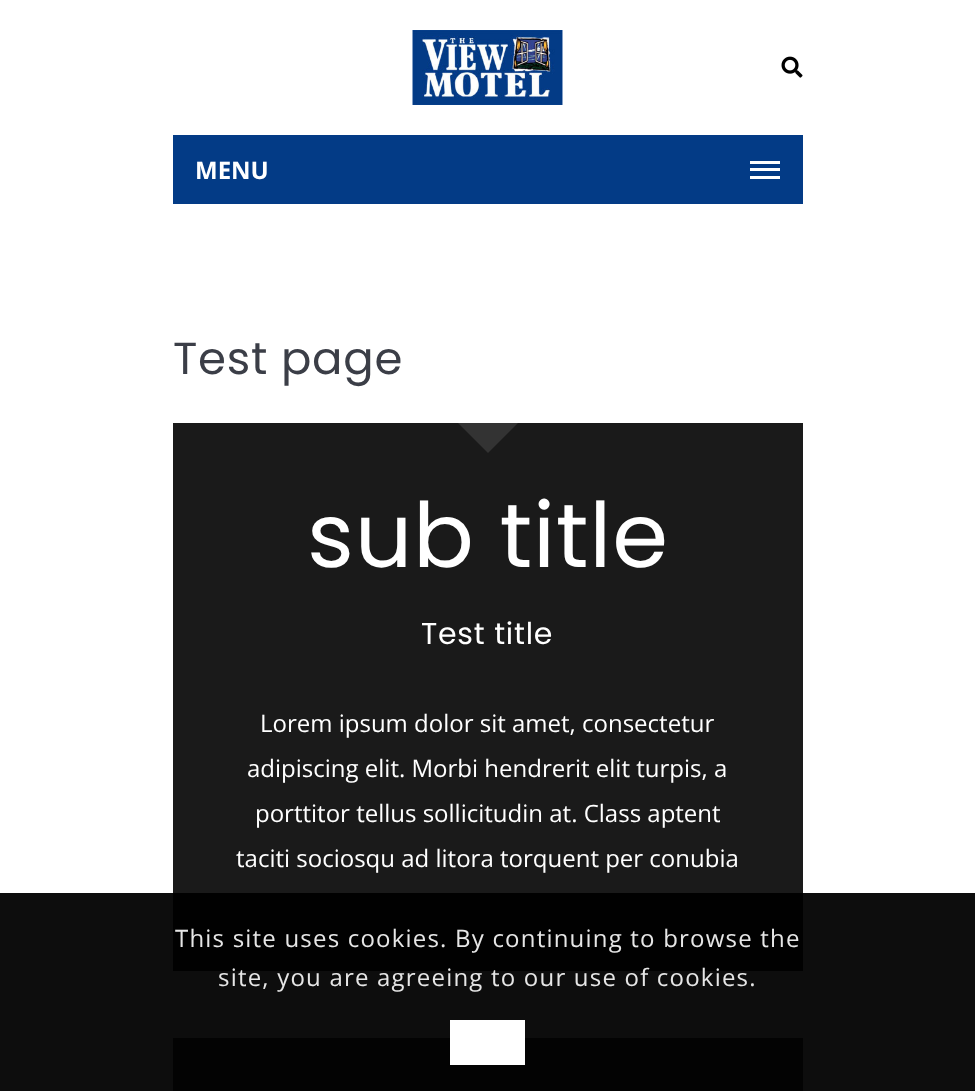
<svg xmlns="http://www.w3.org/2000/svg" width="975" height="1091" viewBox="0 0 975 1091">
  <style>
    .t1 { font: bold 24px Open Sans; fill: #fff; }
    .t2 { font: 45px Poppins; letter-spacing: 0.75px; fill: #3b3e47; }
    .t3 { font: 90px Poppins; letter-spacing: 0.75px; fill: #fff; }
    .t4 { font: 30px Poppins; letter-spacing: 0.75px; fill: #fff; }
    .t5 { font: 24px Open Sans; fill: #fff; }
    .t6 { font: 24px Open Sans; letter-spacing: 1.2px; fill: #e6e6e6; }
  </style>
  <rect width="100%" height="100%" fill="#fff"/>
  <rect x="0" y="893" width="975" height="198" fill="#0d0d0d"/>
  <image x="412" y="30" width="151" height="75" href="images/1.png"/>
  <image x="781" y="56" width="22" height="22" href="images/2.png"/>
  <rect x="173" y="135" width="630" height="69" fill="#033b86"/>
  <text x="195" y="179" class="t1">MENU</text>
  <rect x="750" y="168" width="30" height="3" fill="#fff"/>
  <rect x="750" y="161" width="30" height="3" fill="#fff"/>
  <rect x="750" y="176" width="30" height="3" fill="#fff"/>
  <text x="173" y="374" class="t2">Test page</text>
  <rect x="173" y="423" width="630" height="470" fill="#1a1a1a"/>
  <path d="M458 423H518L488 453Z" fill="#333"/>
  <rect x="173" y="893" width="630" height="78" fill="#010101"/>
  <text x="307" y="567" class="t3">sub title</text>
  <text x="421" y="644" class="t4">Test title</text>
  <text x="260" y="732" class="t5">Lorem ipsum dolor sit amet, consectetur</text>
  <text x="247" y="777" class="t5">adipiscing elit. Morbi hendrerit elit turpis, a</text>
  <text x="255" y="822" class="t5">porttitor tellus sollicitudin at. Class aptent</text>
  <text x="236" y="867" class="t5">taciti sociosqu ad litora torquent per conubia</text>
  <rect x="173" y="1038" width="630" height="53" fill="#030303"/>
  <text x="175" y="947" class="t6">This site uses cookies. By continuing to browse the</text>
  <text x="218" y="986" class="t6">site, you are agreeing to our use of cookies.</text>
  <rect x="450" y="1020" width="75" height="45" fill="#fff"/>
</svg>
